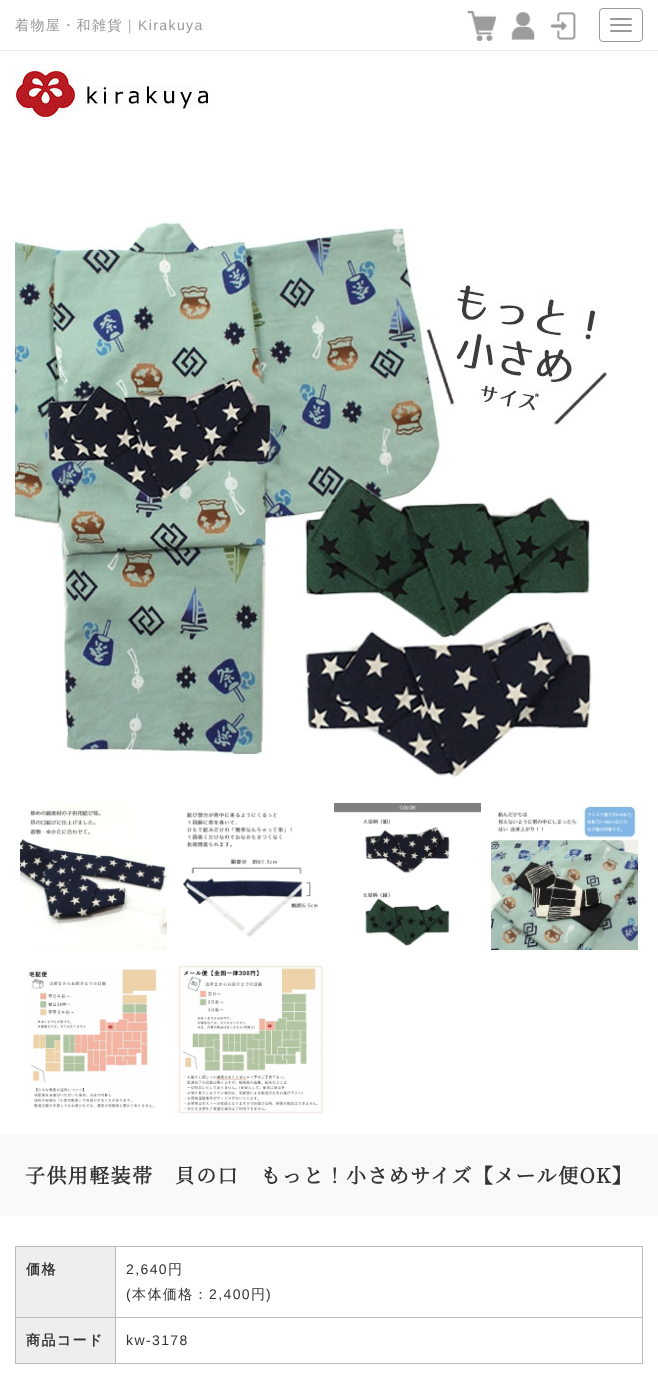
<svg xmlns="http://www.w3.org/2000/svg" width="658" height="1377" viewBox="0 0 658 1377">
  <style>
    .t1 { font: 500 14px WenQuanYi Zen Hei; letter-spacing: 1.4px; fill: #999; }
    .t2 { font: 14px Liberation Sans; letter-spacing: 1.4px; fill: #999; }
    .t3 { font: bold 20px Noto Serif JP; letter-spacing: 1.4px; fill: #333; }
    .t4 { font: bold 14px WenQuanYi Zen Hei; letter-spacing: 1.4px; fill: #333; }
    .t5 { font: 14px Liberation Sans; letter-spacing: 1.4px; fill: #333; }
    .t6 { font: 500 14px WenQuanYi Zen Hei; letter-spacing: 1.4px; fill: #333; }
  </style>
  <rect width="100%" height="100%" fill="#fff"/>
  <rect x="599.5" y="8.5" width="43" height="33" rx="3.5" fill="none" stroke="#999"/>
  <rect x="610" y="18" width="22" height="2" rx="1" fill="#999"/>
  <rect x="610" y="24" width="22" height="2" rx="1" fill="#999"/>
  <rect x="610" y="30" width="22" height="2" rx="1" fill="#999"/>
  <image x="15" y="70" width="194" height="48" href="images/1.png"/>
  <rect x="0" y="50" width="658" height="1" fill="#ebebeb"/>
  <text x="15" y="30" class="t1">着物屋・和雑貨｜</text>
  <text x="138" y="30" class="t2">Kirakuya</text>
  <image x="467" y="11" width="30" height="30" href="images/2.png"/>
  <image x="511" y="12" width="24" height="28" href="images/3.png"/>
  <image x="550" y="12" width="26" height="28" href="images/4.png"/>
  <image x="15" y="221" width="592" height="557" href="images/5.png"/>
  <image x="20" y="803" width="147" height="147" href="images/6.png"/>
  <image x="182" y="812" width="137" height="125" href="images/7.png"/>
  <image x="334" y="803" width="147" height="144" href="images/8.png"/>
  <image x="491" y="806" width="147" height="144" href="images/9.png"/>
  <image x="29" y="969" width="128" height="139" href="images/10.png"/>
  <image x="177" y="965" width="146" height="149" href="images/11.png"/>
  <rect x="0" y="1134" width="658" height="82" fill="#f9f9f9"/>
  <text x="25" y="1183" class="t3">子供用軽装帯　貝の口　もっと！小さめサイズ【メール便OK】</text>
  <rect x="16" y="1247" width="99" height="70" fill="#eee"/>
  <rect x="115" y="1246" width="528" height="1" fill="#bbb"/>
  <rect x="115" y="1317" width="528" height="1" fill="#bbb"/>
  <rect x="642" y="1317" width="1" height="47" fill="#bbb"/>
  <rect x="115" y="1363" width="528" height="1" fill="#bbb"/>
  <rect x="115" y="1317" width="1" height="47" fill="#bbb"/>
  <rect x="15" y="1317" width="101" height="1" fill="#bbb"/>
  <rect x="115" y="1246" width="1" height="72" fill="#bbb"/>
  <rect x="15" y="1246" width="101" height="1" fill="#bbb"/>
  <rect x="15" y="1363" width="101" height="1" fill="#bbb"/>
  <rect x="15" y="1317" width="1" height="47" fill="#bbb"/>
  <rect x="15" y="1246" width="1" height="72" fill="#bbb"/>
  <text x="26" y="1274" class="t4">価格</text>
  <rect x="642" y="1246" width="1" height="72" fill="#bbb"/>
  <text x="126" y="1274" class="t5">2,640</text>
  <text x="168" y="1274" class="t6">円</text>
  <text x="126" y="1299" class="t5">(</text>
  <text x="132" y="1299" class="t6">本体価格：</text>
  <text x="209" y="1299" class="t5">2,400</text>
  <text x="251" y="1299" class="t6">円</text>
  <text x="266" y="1299" class="t5">)</text>
  <rect x="16" y="1318" width="99" height="45" fill="#eee"/>
  <text x="26" y="1345" class="t4">商品コード</text>
  <text x="126" y="1345" class="t5">kw-3178</text>
</svg>
